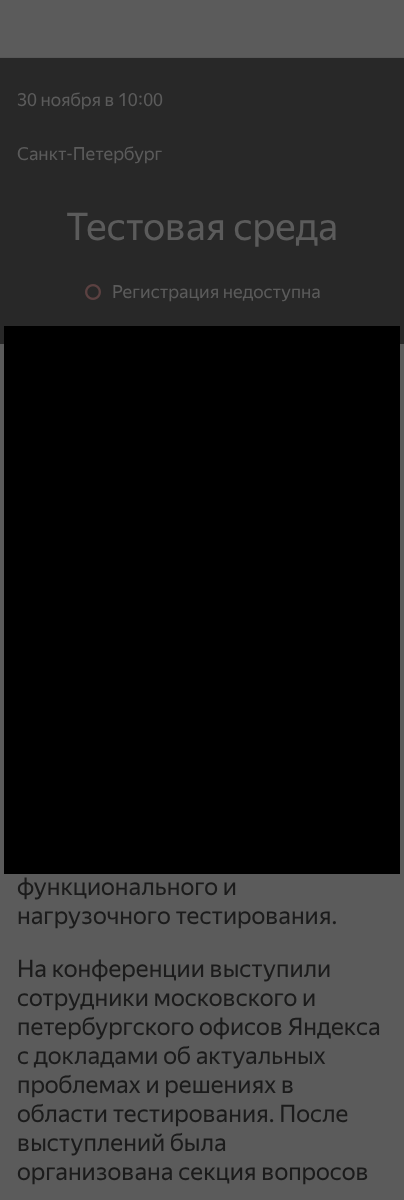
<svg xmlns="http://www.w3.org/2000/svg" width="404" height="1200" viewBox="0 0 404 1200">
  <style>
    .t1 { font: 18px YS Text; fill: #5b5b5b; }
    .t2 { font: 38px YS Text; fill: #5b5b5b; }
    .t3 { font: 24px YS Text; fill: #1b1b1b; }
  </style>
  <rect width="100%" height="100%" fill="#5b5b5b"/>
  <rect x="0" y="57" width="404" height="1" fill="#565656"/>
  <rect x="0" y="58" width="404" height="286" fill="#282828"/>
  <text x="17" y="106" class="t1">30 ноября в 10:00</text>
  <text x="17" y="160" class="t1">Санкт-Петербург</text>
  <text x="66" y="240" class="t2">Тестовая среда</text>
  <image x="85" y="284" width="16" height="16" href="images/1.png"/>
  <text x="112" y="298" class="t1">Регистрация недоступна</text>
  <text x="17" y="895" class="t3">функционального и</text>
  <text x="17" y="924" class="t3">нагрузочного тестирования.</text>
  <text x="17" y="977" class="t3">На конференции выступили</text>
  <text x="17" y="1006" class="t3">сотрудники московского и</text>
  <text x="17" y="1035" class="t3">петербургского офисов Яндекса</text>
  <text x="17" y="1064" class="t3">с докладами об актуальных</text>
  <text x="17" y="1093" class="t3">проблемах и решениях в</text>
  <text x="17" y="1122" class="t3">области тестирования. После</text>
  <text x="17" y="1151" class="t3">выступлений была</text>
  <text x="17" y="1180" class="t3">организована секция вопросов</text>
  <rect x="4" y="326" width="396" height="548" fill="#000"/>
</svg>
